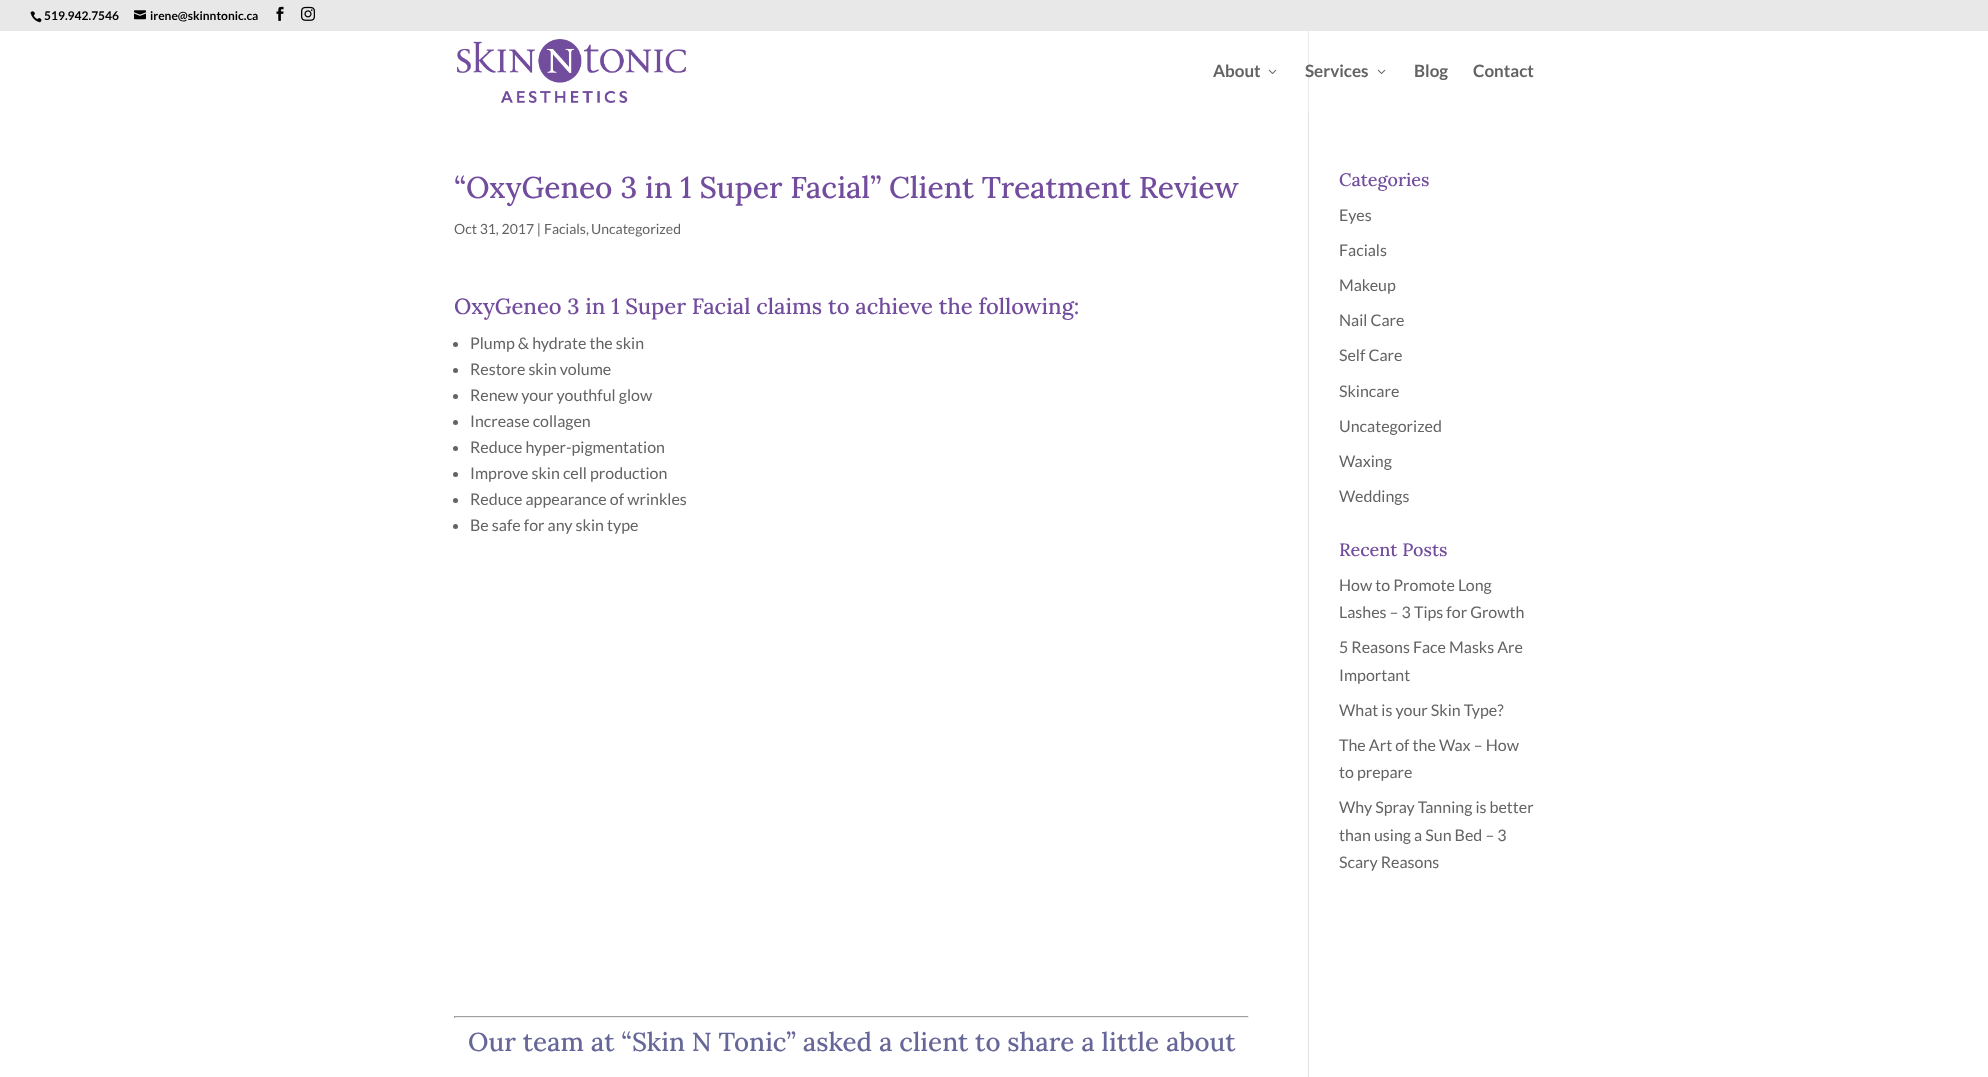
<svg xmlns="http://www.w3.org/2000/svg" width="1988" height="1077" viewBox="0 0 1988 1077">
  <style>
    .t1 { font: bold 12px Lato; fill: #000; }
    .t2 { font: bold 17px Lato; fill: #636363; }
    .t3 { font: 500 30px Lora; fill: #724c9d; }
    .t4 { font: 14px Lato; fill: #636363; }
    .t5 { font: 500 22px Lora; fill: #724c9d; }
    .t6 { font: 16px Lato; fill: #636363; }
    .t7 { font: 500 26px Lora; fill: #669; }
    .t8 { font: 500 18px Lora; fill: #724c9d; }
  </style>
  <rect width="100%" height="100%" fill="#fff"/>
  <rect x="0" y="0" width="1988" height="31" fill="#e8e8e8"/>
  <image x="30" y="11" width="12" height="12" href="images/1.png"/>
  <text x="44" y="20" class="t1">519.942.7546</text>
  <image x="134" y="10" width="12" height="10" href="images/2.png"/>
  <text x="150" y="20" class="t1">irene@skinntonic.ca</text>
  <image x="276" y="6" width="8" height="15" href="images/3.png"/>
  <image x="301" y="6" width="14" height="15" href="images/4.png"/>
  <image x="457" y="39" width="229" height="64" href="images/5.png"/>
  <text x="1213" y="77" class="t2">About</text>
  <image x="1268" y="69" width="9" height="5" href="images/6.png"/>
  <rect x="1308" y="31" width="1" height="80" fill="#eaeaea"/>
  <text x="1305" y="77" class="t2">Services</text>
  <image x="1377" y="69" width="9" height="5" href="images/6.png"/>
  <text x="1414" y="77" class="t2">Blog</text>
  <text x="1473" y="77" class="t2">Contact</text>
  <rect x="1308" y="111" width="1" height="966" fill="#e2e2e2"/>
  <text x="454" y="198" class="t3">“OxyGeneo 3 in 1 Super Facial” Client Treatment Review</text>
  <text x="454" y="234" class="t4">Oct 31, 2017 |</text>
  <text x="544" y="234" class="t4">Facials</text>
  <text x="586" y="234" class="t4">,</text>
  <text x="591" y="234" class="t4">Uncategorized</text>
  <text x="454" y="314" class="t5">OxyGeneo 3 in 1 Super Facial claims to achieve the following:</text>
  <circle cx="455.5" cy="344.5" r="2.5" fill="#636363"/>
  <text x="470" y="349" class="t6">Plump &amp; hydrate the skin</text>
  <circle cx="455.5" cy="370.5" r="2.5" fill="#636363"/>
  <text x="470" y="375" class="t6">Restore skin volume</text>
  <circle cx="455.5" cy="396.5" r="2.5" fill="#636363"/>
  <text x="470" y="401" class="t6">Renew your youthful glow</text>
  <circle cx="455.5" cy="422.5" r="2.5" fill="#636363"/>
  <text x="470" y="427" class="t6">Increase collagen</text>
  <circle cx="455.5" cy="448.5" r="2.5" fill="#636363"/>
  <text x="470" y="453" class="t6">Reduce hyper-pigmentation</text>
  <circle cx="455.5" cy="474.5" r="2.5" fill="#636363"/>
  <text x="470" y="479" class="t6">Improve skin cell production</text>
  <circle cx="455.5" cy="500.5" r="2.5" fill="#636363"/>
  <text x="470" y="505" class="t6">Reduce appearance of wrinkles</text>
  <circle cx="455.5" cy="526.5" r="2.5" fill="#636363"/>
  <text x="470" y="531" class="t6">Be safe for any skin type</text>
  <rect x="454" y="1016" width="795" height="1" fill="#9f9f9f"/>
  <rect x="1248" y="1016" width="1" height="2" fill="#eee"/>
  <rect x="454" y="1017" width="795" height="1" fill="#eee"/>
  <rect x="454" y="1016" width="1" height="2" fill="#9f9f9f"/>
  <text x="468" y="1051" class="t7">Our team at “Skin N Tonic” asked a client to share a little about</text>
  <text x="1339" y="186" class="t8">Categories</text>
  <text x="1339" y="221" class="t6">Eyes</text>
  <text x="1339" y="256" class="t6">Facials</text>
  <text x="1339" y="291" class="t6">Makeup</text>
  <text x="1339" y="326" class="t6">Nail Care</text>
  <text x="1339" y="361" class="t6">Self Care</text>
  <text x="1339" y="397" class="t6">Skincare</text>
  <text x="1339" y="432" class="t6">Uncategorized</text>
  <text x="1339" y="467" class="t6">Waxing</text>
  <text x="1339" y="502" class="t6">Weddings</text>
  <text x="1339" y="556" class="t8">Recent Posts</text>
  <text x="1339" y="591" class="t6">How to Promote Long</text>
  <text x="1339" y="618" class="t6">Lashes – 3 Tips for Growth</text>
  <text x="1339" y="653" class="t6">5 Reasons Face Masks Are</text>
  <text x="1339" y="681" class="t6">Important</text>
  <text x="1339" y="716" class="t6">What is your Skin Type?</text>
  <text x="1339" y="751" class="t6">The Art of the Wax – How</text>
  <text x="1339" y="778" class="t6">to prepare</text>
  <text x="1339" y="813" class="t6">Why Spray Tanning is better</text>
  <text x="1339" y="841" class="t6">than using a Sun Bed – 3</text>
  <text x="1339" y="868" class="t6">Scary Reasons</text>
</svg>
